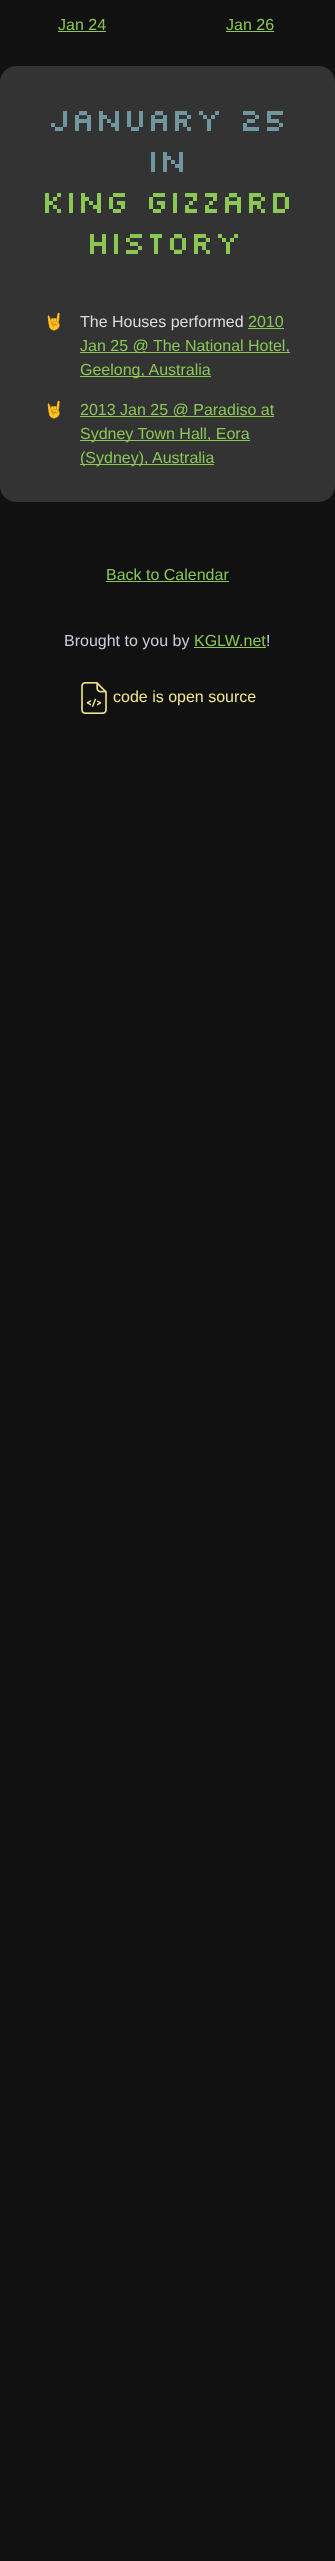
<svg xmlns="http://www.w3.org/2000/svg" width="335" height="2561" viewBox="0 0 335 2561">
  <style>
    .t1 { font: 16px Liberation Sans; fill: #8ac755; }
    .t2 { font: 32px Silkscreen; fill: #70969f; }
    .t3 { font: 32px Silkscreen; fill: #8ac755; }
    .t4 { font: 16px Noto Color Emoji; fill: #ddd; }
    .t5 { font: 16px Liberation Sans; fill: #ddd; }
    .t6 { font: 16px Liberation Sans; fill: #ccd; }
    .t7 { font: 16px Liberation Sans; fill: #f0e68c; }
  </style>
  <rect width="100%" height="100%" fill="#111"/>
  <text x="58" y="30" class="t1">Jan 24</text>
  <rect x="58" y="31" width="48" height="1" fill="#8ac755"/>
  <text x="226" y="30" class="t1">Jan 26</text>
  <rect x="226" y="31" width="48" height="1" fill="#8ac755"/>
  <rect x="0" y="66" width="335" height="436" rx="16" fill="#333"/>
  <text x="47" y="131" class="t2">January 25</text>
  <text x="147" y="172" class="t2">in</text>
  <text x="41" y="213" class="t3">King Gizzard</text>
  <text x="86" y="254" class="t3">History</text>
  <text x="44" y="327" class="t4">🤘</text>
  <text x="80" y="327" class="t5">The Houses performed</text>
  <text x="248" y="327" class="t1">2010</text>
  <rect x="248" y="328" width="36" height="1" fill="#8ac755"/>
  <rect x="80" y="352" width="210" height="1" fill="#8ac755"/>
  <text x="80" y="351" class="t1">Jan 25 @ The National Hotel,</text>
  <rect x="80" y="376" width="131" height="1" fill="#8ac755"/>
  <text x="80" y="375" class="t1">Geelong, Australia</text>
  <text x="44" y="415" class="t4">🤘</text>
  <rect x="80" y="416" width="194" height="1" fill="#8ac755"/>
  <text x="80" y="415" class="t1">2013 Jan 25 @ Paradiso at</text>
  <rect x="80" y="440" width="170" height="1" fill="#8ac755"/>
  <text x="80" y="439" class="t1">Sydney Town Hall, Eora</text>
  <rect x="80" y="464" width="134" height="1" fill="#8ac755"/>
  <text x="80" y="463" class="t1">(Sydney), Australia</text>
  <text x="106" y="580" class="t1">Back to Calendar</text>
  <rect x="106" y="581" width="123" height="1" fill="#8ac755"/>
  <text x="64" y="646" class="t6">Brought to you by</text>
  <text x="194" y="646" class="t1">KGLW.net</text>
  <rect x="194" y="647" width="72" height="1" fill="#8ac755"/>
  <text x="266" y="646" class="t6">!</text>
  <image x="81" y="682" width="26" height="32" href="images/1.png"/>
  <text x="113" y="702" class="t7">code is open source</text>
</svg>
